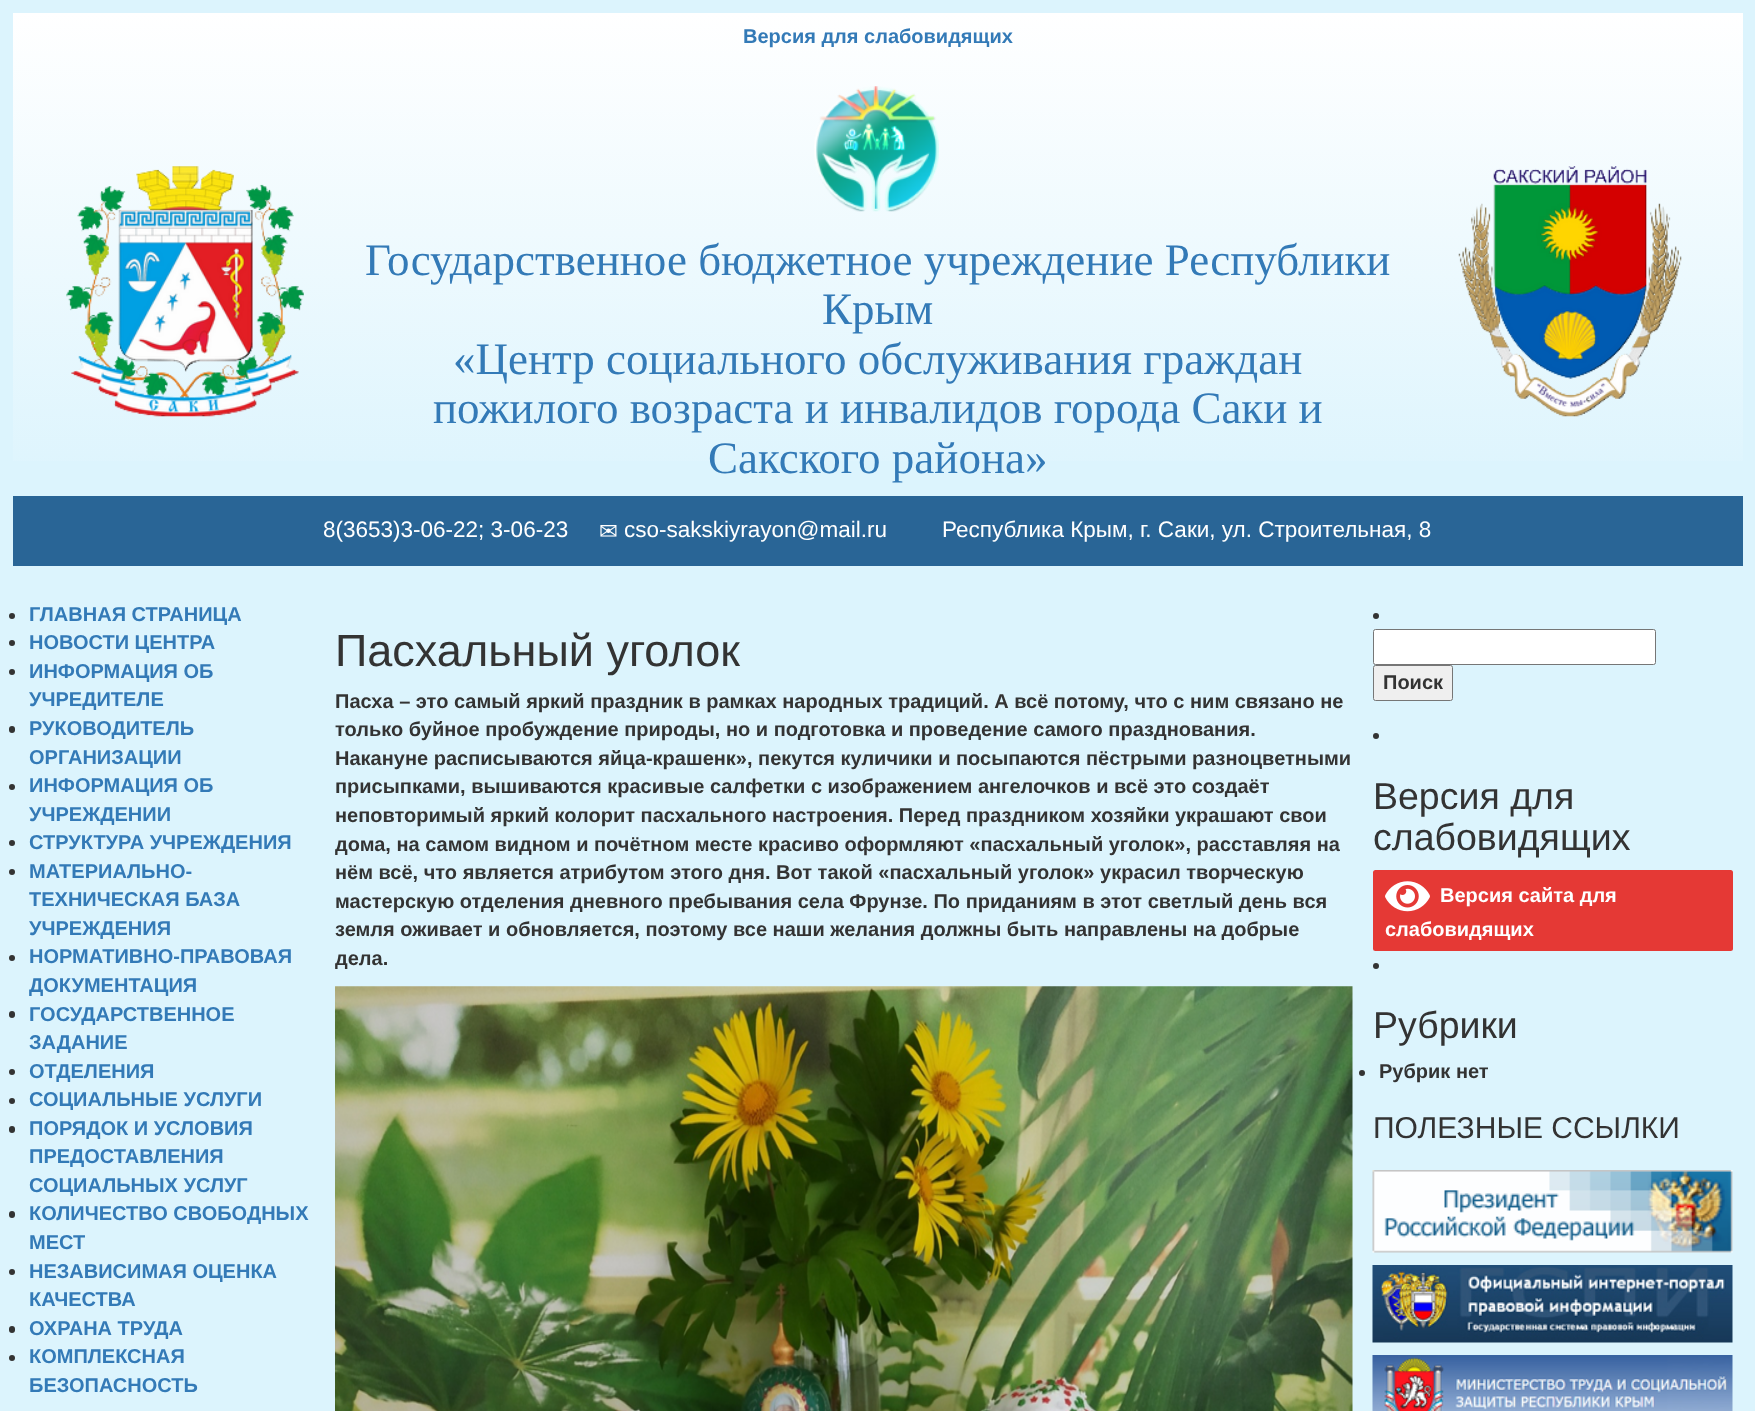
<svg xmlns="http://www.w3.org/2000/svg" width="1755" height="1411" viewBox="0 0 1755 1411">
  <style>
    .t1 { font: bold 20px Liberation Sans; fill: #337ab7; }
    .t2 { font: 45px Liberation Serif; fill: #337ab7; }
    .t3 { font: 22.5px Liberation Sans; fill: #fff; }
    .t4 { font: 22.5px DejaVu Sans; fill: #fff; }
    .t5 { font: 45px Liberation Sans; fill: #333; }
    .t6 { font: bold 20px Liberation Sans; fill: #333; }
    .t7 { font: 37.5px Liberation Sans; fill: #333; }
    .t8 { font: bold 20px Liberation Sans; fill: #fff; }
    .t9 { font: 30px Liberation Sans; fill: #333; }
  </style>
  <defs>
    <linearGradient id="g1" gradientUnits="userSpaceOnUse" x1="878" y1="496" x2="878" y2="13"><stop offset="0" stop-color="#dcf4fd"/><stop offset="1" stop-color="#fff"/></linearGradient>
  </defs>
  <rect width="100%" height="100%" fill="#dcf4fd"/>
  <rect x="13" y="13" width="1730" height="448" fill="url(#g1)"/>
  <text x="743" y="43" class="t1">Версия для слабовидящих</text>
  <image x="66" y="166" width="238" height="251" href="images/1.png"/>
  <image x="814" y="86" width="125" height="126" href="images/2.png"/>
  <text x="365" y="275" class="t2">Государственное бюджетное учреждение Республики</text>
  <text x="822" y="324" class="t2">Крым</text>
  <text x="453" y="374" class="t2">«Центр социального обслуживания граждан</text>
  <text x="433" y="423" class="t2">пожилого возраста и инвалидов города Саки и</text>
  <text x="708" y="473" class="t2">Сакского района»</text>
  <image x="1458" y="166" width="224" height="251" href="images/3.png"/>
  <rect x="13" y="496" width="1730" height="70" fill="#296596"/>
  <text x="323" y="537" class="t3">8(3653)3-06-22; 3-06-23</text>
  <text x="599" y="539" class="t4">✉</text>
  <text x="624" y="537" class="t3">cso-sakskiyrayon@mail.ru</text>
  <text x="942" y="537" class="t3">Республика Крым, г. Саки, ул. Строительная, 8</text>
  <circle cx="12" cy="616" r="3" fill="#333"/>
  <text x="29" y="621" class="t1">ГЛАВНАЯ СТРАНИЦА</text>
  <circle cx="12" cy="643" r="3" fill="#333"/>
  <text x="29" y="649" class="t1">НОВОСТИ ЦЕНТРА</text>
  <circle cx="12" cy="672" r="3" fill="#333"/>
  <text x="29" y="678" class="t1">ИНФОРМАЦИЯ ОБ</text>
  <text x="29" y="706" class="t1">УЧРЕДИТЕЛЕ</text>
  <rect x="9" y="726" width="6" height="7" rx="3" fill="#333"/>
  <text x="29" y="735" class="t1">РУКОВОДИТЕЛЬ</text>
  <text x="29" y="764" class="t1">ОРГАНИЗАЦИИ</text>
  <circle cx="12" cy="787" r="3" fill="#333"/>
  <text x="29" y="792" class="t1">ИНФОРМАЦИЯ ОБ</text>
  <text x="29" y="821" class="t1">УЧРЕЖДЕНИИ</text>
  <circle cx="12" cy="843" r="3" fill="#333"/>
  <text x="29" y="849" class="t1">СТРУКТУРА УЧРЕЖДЕНИЯ</text>
  <circle cx="12" cy="872" r="3" fill="#333"/>
  <text x="29" y="878" class="t1">МАТЕРИАЛЬНО-</text>
  <text x="29" y="906" class="t1">ТЕХНИЧЕСКАЯ БАЗА</text>
  <text x="29" y="935" class="t1">УЧРЕЖДЕНИЯ</text>
  <circle cx="12" cy="958" r="3" fill="#333"/>
  <text x="29" y="963" class="t1">НОРМАТИВНО-ПРАВОВАЯ</text>
  <text x="29" y="992" class="t1">ДОКУМЕНТАЦИЯ</text>
  <rect x="9" y="1011" width="6" height="7" rx="3" fill="#333"/>
  <text x="29" y="1021" class="t1">ГОСУДАРСТВЕННОЕ</text>
  <text x="29" y="1049" class="t1">ЗАДАНИЕ</text>
  <circle cx="12" cy="1072" r="3" fill="#333"/>
  <text x="29" y="1078" class="t1">ОТДЕЛЕНИЯ</text>
  <circle cx="12" cy="1101" r="3" fill="#333"/>
  <text x="29" y="1106" class="t1">СОЦИАЛЬНЫЕ УСЛУГИ</text>
  <rect x="9" y="1126" width="6" height="7" rx="3" fill="#333"/>
  <text x="29" y="1135" class="t1">ПОРЯДОК И УСЛОВИЯ</text>
  <text x="29" y="1163" class="t1">ПРЕДОСТАВЛЕНИЯ</text>
  <text x="29" y="1192" class="t1">СОЦИАЛЬНЫХ УСЛУГ</text>
  <rect x="9" y="1211" width="6" height="7" rx="3" fill="#333"/>
  <text x="29" y="1220" class="t1">КОЛИЧЕСТВО СВОБОДНЫХ</text>
  <text x="29" y="1249" class="t1">МЕСТ</text>
  <circle cx="12" cy="1272" r="3" fill="#333"/>
  <text x="29" y="1278" class="t1">НЕЗАВИСИМАЯ ОЦЕНКА</text>
  <text x="29" y="1306" class="t1">КАЧЕСТВА</text>
  <rect x="9" y="1326" width="6" height="7" rx="3" fill="#333"/>
  <text x="29" y="1335" class="t1">ОХРАНА ТРУДА</text>
  <circle cx="12" cy="1358" r="3" fill="#333"/>
  <text x="29" y="1363" class="t1">КОМПЛЕКСНАЯ</text>
  <text x="29" y="1392" class="t1">БЕЗОПАСНОСТЬ</text>
  <text x="335" y="666" class="t5">Пасхальный уголок</text>
  <text x="335" y="708" class="t6">Пасха – это самый яркий праздник в рамках народных традиций. А всё потому, что с ним связано не</text>
  <text x="335" y="736" class="t6">только буйное пробуждение природы, но и подготовка и проведение самого празднования.</text>
  <text x="335" y="765" class="t6">Накануне расписываются яйца-крашенк», пекутся куличики и посыпаются пёстрыми разноцветными</text>
  <text x="335" y="793" class="t6">присыпками, вышиваются красивые салфетки с изображением ангелочков и всё это создаёт</text>
  <text x="335" y="822" class="t6">неповторимый яркий колорит пасхального настроения. Перед праздником хозяйки украшают свои</text>
  <text x="335" y="851" class="t6">дома, на самом видном и почётном месте красиво оформляют «пасхальный уголок», расставляя на</text>
  <text x="335" y="879" class="t6">нём всё, что является атрибутом этого дня. Вот такой «пасхальный уголок» украсил творческую</text>
  <text x="335" y="908" class="t6">мастерскую отделения дневного пребывания села Фрунзе. По приданиям в этот светлый день вся</text>
  <text x="335" y="936" class="t6">земля оживает и обновляется, поэтому все наши желания должны быть направлены на добрые</text>
  <text x="335" y="965" class="t6">дела.</text>
  <image x="335" y="986" width="1018" height="425" href="images/4.png"/>
  <circle cx="1376" cy="616" r="3" fill="#333"/>
  <rect x="1373.5" y="629.5" width="282" height="35" rx="2" fill="#fff" stroke="#767676"/>
  <rect x="1373.5" y="665.5" width="79" height="35" rx="2" fill="#efefef" stroke="#767676"/>
  <text x="1383" y="689" class="t6">Поиск</text>
  <circle cx="1376" cy="736" r="3" fill="#333"/>
  <text x="1373" y="809" class="t7">Версия для</text>
  <text x="1373" y="850" class="t7">слабовидящих</text>
  <rect x="1373" y="870" width="360" height="81" rx="2.5" fill="#e53935"/>
  <image x="1385" y="881" width="45" height="31" href="images/5.png"/>
  <text x="1440" y="902" class="t8">Версия сайта для</text>
  <text x="1385" y="936" class="t8">слабовидящих</text>
  <circle cx="1376" cy="966" r="3" fill="#333"/>
  <text x="1373" y="1038" class="t7">Рубрики</text>
  <circle cx="1362" cy="1073" r="3" fill="#333"/>
  <text x="1379" y="1078" class="t6">Рубрик нет</text>
  <text x="1373" y="1138" class="t9">ПОЛЕЗНЫЕ ССЫЛКИ</text>
  <image x="1372" y="1170" width="361" height="83" href="images/6.png"/>
  <image x="1372" y="1265" width="361" height="78" href="images/7.png"/>
  <image x="1372" y="1355" width="361" height="56" href="images/8.png"/>
</svg>
